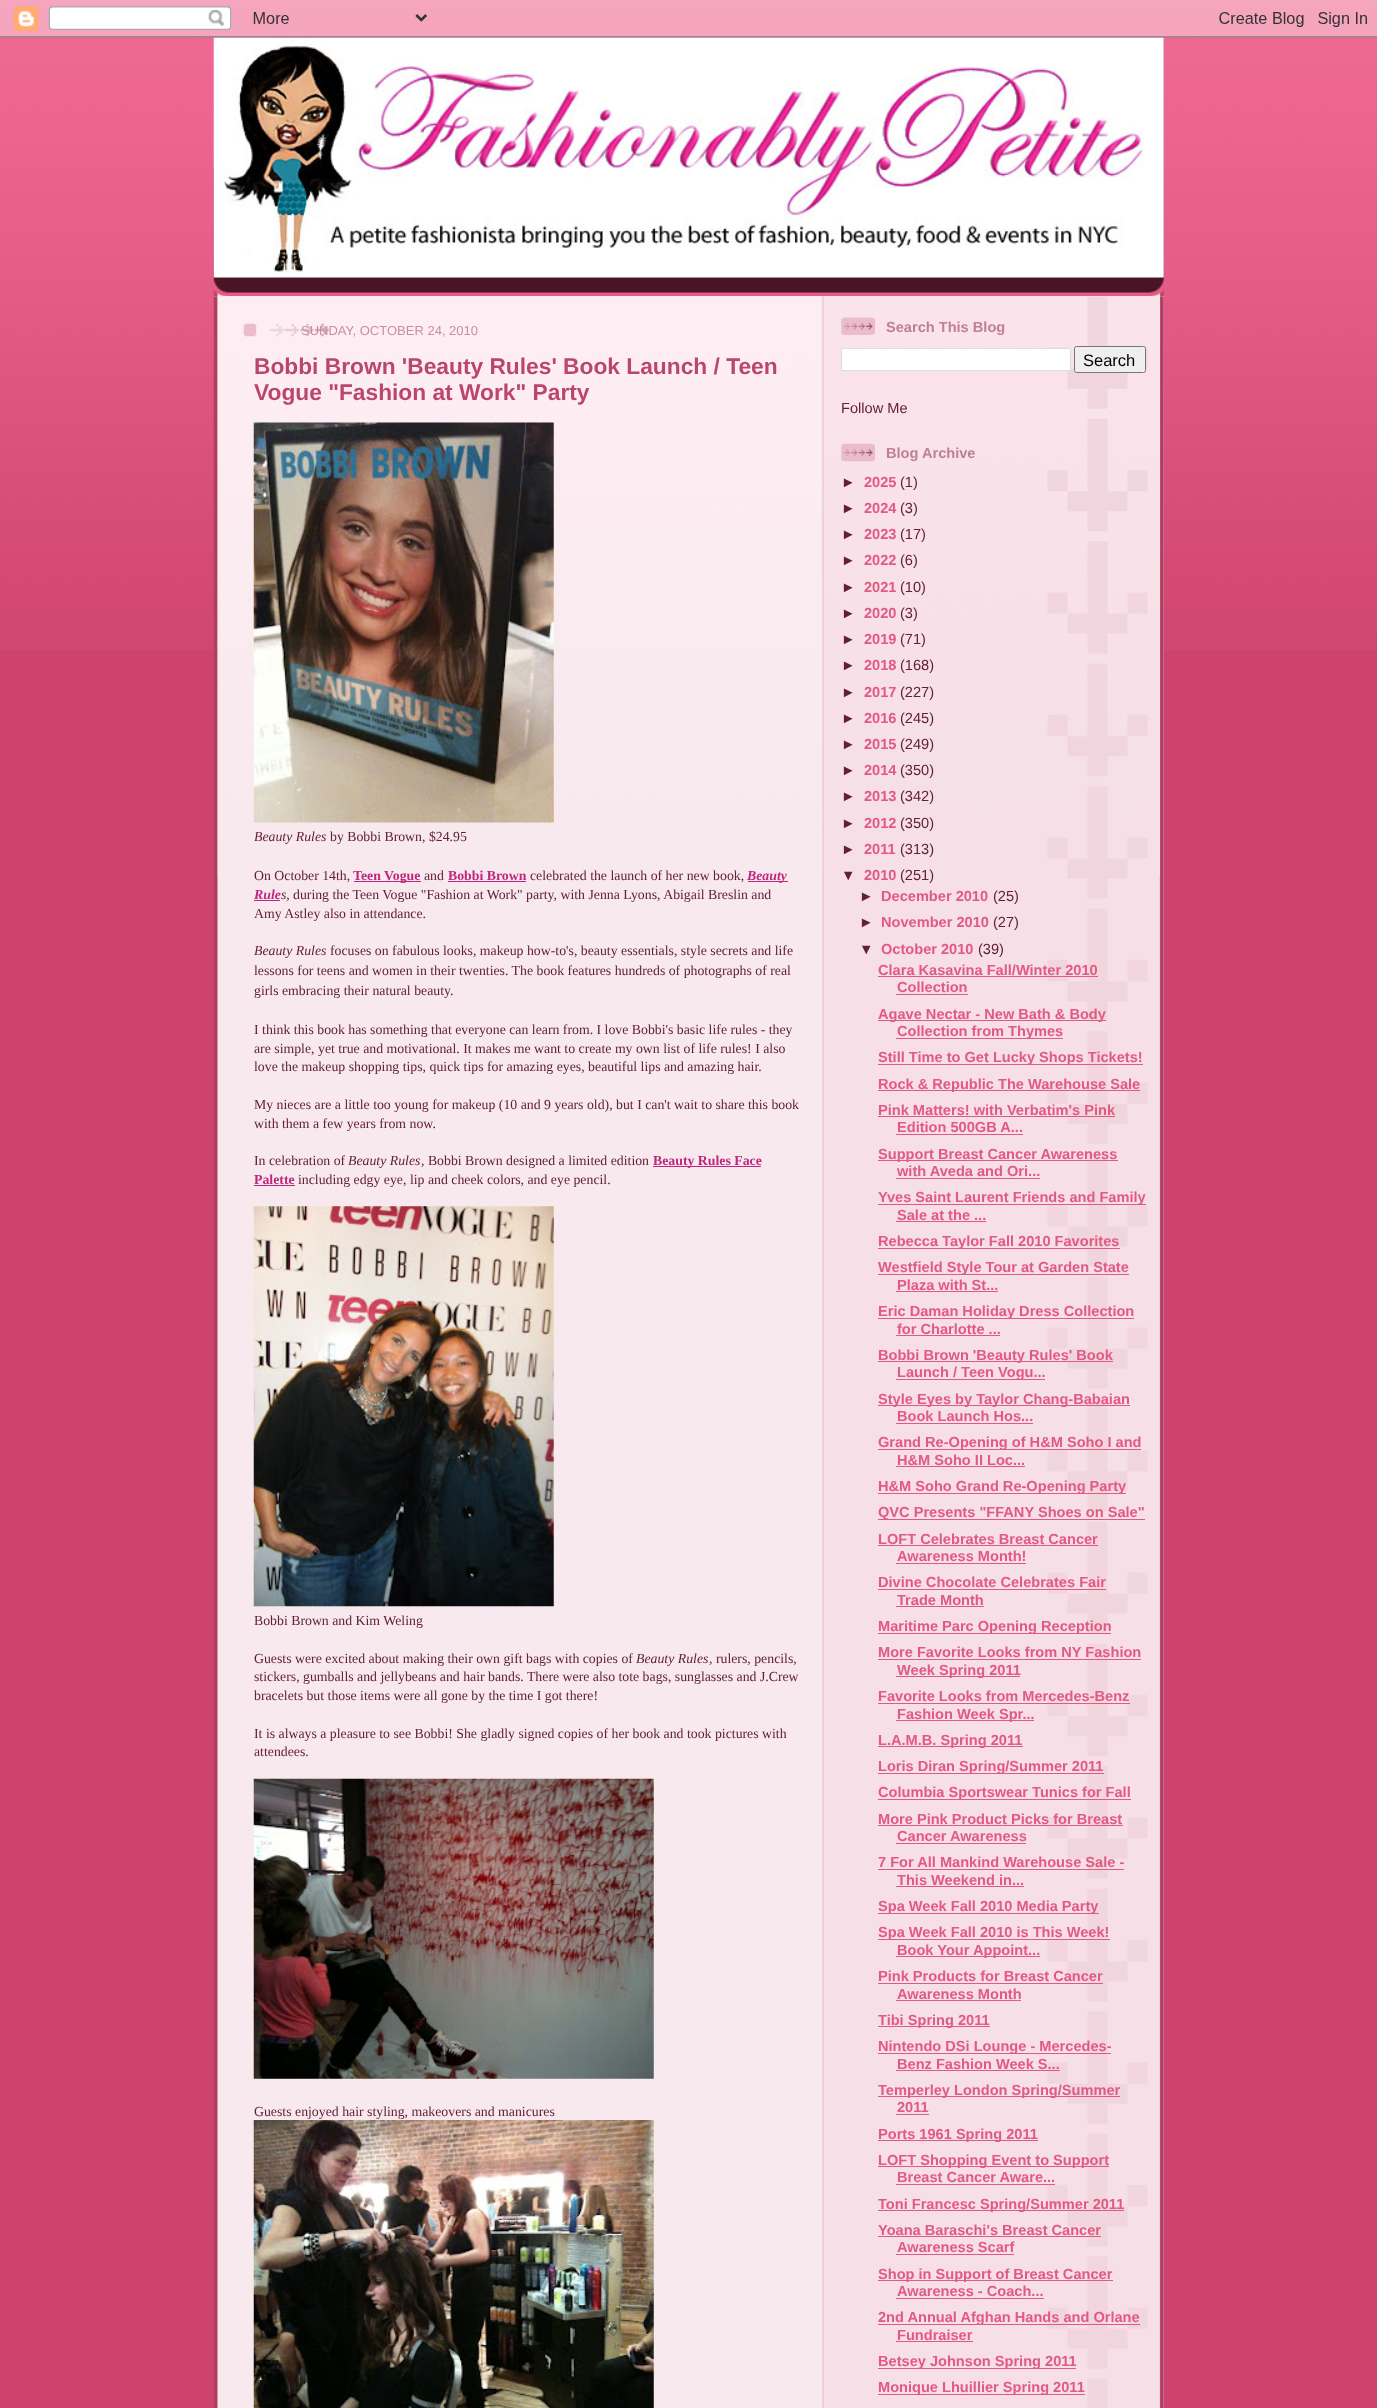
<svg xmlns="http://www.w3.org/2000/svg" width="1377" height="2408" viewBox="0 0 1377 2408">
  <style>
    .t1 { font: 13px Liberation Sans; fill: #c88fa2; }
    .t2 { font: bold 22.75px Liberation Sans; fill: #ba476b; }
    .t3 { font: italic 13.8px Liberation Serif; fill: #632035; }
    .t4 { font: 13.8px Liberation Serif; fill: #632035; }
    .t5 { font: bold 13.8px Liberation Serif; fill: #bf277e; }
    .t6 { font: italic bold 13.8px Liberation Serif; fill: #bf277e; }
    .t7 { font: bold 14.6px Liberation Sans; fill: #bd8095; }
    .t8 { font: 16.5px Liberation Sans; fill: #000; }
    .t9 { font: 14.6px Liberation Sans; fill: #632035; }
    .t10 { font: bold 14.6px Liberation Sans; fill: #632035; }
    .t11 { font: bold 14.6px Liberation Sans; fill: #e25984; }
  </style>
  <rect width="100%" height="100%" fill="#ce436e"/>
  <image x="0" y="0" width="1377" height="650" href="images/1.png"/>
  <image x="213" y="277" width="951" height="20" href="images/3.png"/>
  <rect x="214" y="38" width="950" height="240" fill="#632035"/>
  <image x="213" y="167" width="951" height="111" href="images/4.png"/>
  <image x="213" y="37" width="951" height="241" href="images/5.png"/>
  <image x="0" y="0" width="1377" height="38" href="images/2.png"/>
  <rect x="214" y="296" width="950" height="2112" fill="#f7f0e9"/>
  <image x="213" y="296" width="951" height="2112" href="images/6.png"/>
  <image x="217" y="296" width="604" height="581" href="images/7.png"/>
  <image x="243" y="323" width="14" height="14" href="images/8.png"/>
  <image x="270" y="323" width="59" height="14" href="images/9.png"/>
  <text x="301" y="335" class="t1">SUNDAY, OCTOBER 24, 2010</text>
  <text x="254" y="374" class="t2">Bobbi Brown 'Beauty Rules' Book Launch / Teen</text>
  <text x="254" y="400" class="t2">Vogue "Fashion at Work" Party</text>
  <image x="253" y="422" width="301" height="401" href="images/10.png"/>
  <text x="254" y="841" class="t3">Beauty Rules</text>
  <text x="330" y="841" class="t4">by Bobbi Brown, $24.95</text>
  <text x="254" y="880" class="t4">On October 14th,</text>
  <rect x="354" y="881" width="67" height="1" fill="#bf277e"/>
  <text x="353" y="880" class="t5">Teen Vogue</text>
  <text x="424" y="880" class="t4">and</text>
  <text x="448" y="880" class="t5">Bobbi Brown</text>
  <rect x="448" y="881" width="78" height="1" fill="#bf277e"/>
  <text x="530" y="880" class="t4">celebrated the launch of her new book,</text>
  <rect x="748" y="881" width="40" height="1" fill="#bf277e"/>
  <text x="747" y="880" class="t6">Beauty</text>
  <text x="254" y="899" class="t6">Rule</text>
  <text x="281" y="899" class="t3">s,</text>
  <rect x="254" y="900" width="26" height="1" fill="#bf277e"/>
  <text x="293" y="899" class="t4">during the Teen Vogue "Fashion at Work" party, with Jenna Lyons, Abigail Breslin and</text>
  <text x="254" y="918" class="t4">Amy Astley also in attendance.</text>
  <text x="254" y="955" class="t3">Beauty Rules</text>
  <text x="330" y="955" class="t4">focuses on fabulous looks, makeup how-to's, beauty essentials, style secrets and life</text>
  <text x="254" y="975" class="t4">lessons for teens and women in their twenties. The book features hundreds of photographs of real</text>
  <text x="254" y="995" class="t4">girls embracing their natural beauty.</text>
  <text x="254" y="1034" class="t4">I think this book has something that everyone can learn from. I love Bobbi's basic life rules - they</text>
  <text x="254" y="1053" class="t4">are simple, yet true and motivational. It makes me want to create my own list of life rules! I also</text>
  <text x="254" y="1071" class="t4">love the makeup shopping tips, quick tips for amazing eyes, beautiful lips and amazing hair.</text>
  <text x="254" y="1109" class="t4">My nieces are a little too young for makeup (10 and 9 years old), but I can't wait to share this book</text>
  <text x="254" y="1128" class="t4">with them a few years from now.</text>
  <text x="254" y="1165" class="t4">In celebration of</text>
  <text x="348" y="1165" class="t3">Beauty Rules</text>
  <text x="421" y="1165" class="t4">, Bobbi Brown designed a limited edition</text>
  <rect x="653" y="1166" width="108" height="1" fill="#bf277e"/>
  <text x="653" y="1165" class="t5">Beauty Rules Face</text>
  <text x="254" y="1184" class="t5">Palette</text>
  <rect x="254" y="1185" width="41" height="1" fill="#bf277e"/>
  <text x="298" y="1184" class="t4">including edgy eye, lip and cheek colors, and eye pencil.</text>
  <image x="253" y="1206" width="301" height="401" href="images/11.png"/>
  <text x="254" y="1625" class="t4">Bobbi Brown and Kim Weling</text>
  <text x="254" y="1663" class="t4">Guests were excited about making their own gift bags with copies of</text>
  <text x="636" y="1663" class="t3">Beauty Rules</text>
  <text x="709" y="1663" class="t4">, rulers, pencils,</text>
  <text x="254" y="1681" class="t4">stickers, gumballs and jellybeans and hair bands. There were also tote bags, sunglasses and J.Crew</text>
  <text x="254" y="1700" class="t4">bracelets but those items were all gone by the time I got there!</text>
  <text x="254" y="1738" class="t4">It is always a pleasure to see Bobbi! She gladly signed copies of her book and took pictures with</text>
  <text x="254" y="1756" class="t4">attendees.</text>
  <image x="253" y="1778" width="401" height="301" href="images/12.png"/>
  <text x="254" y="2116" class="t4">Guests enjoyed hair styling, makeovers and manicures</text>
  <image x="253" y="2120" width="401" height="288" href="images/13.png"/>
  <image x="823" y="296" width="337" height="581" href="images/14.png"/>
  <image x="1047" y="296" width="101" height="2112" href="images/15.png"/>
  <image x="841" y="317" width="34" height="18" href="images/16.png"/>
  <text x="886" y="332" class="t7">Search This Blog</text>
  <rect x="841.5" y="348.5" width="229" height="22" fill="#fff" stroke="#ddd"/>
  <rect x="1074.5" y="346.5" width="71" height="26" rx="2" fill="#efefef" stroke="#767676"/>
  <text x="1083" y="366" class="t8">Search</text>
  <text x="841" y="413" class="t9">Follow Me</text>
  <image x="841" y="443" width="34" height="19" href="images/17.png"/>
  <text x="886" y="458" class="t7">Blog Archive</text>
  <text x="841" y="487" class="t10">►</text>
  <text x="864" y="487" class="t11">2025</text>
  <text x="900" y="487" class="t9">(1)</text>
  <text x="841" y="513" class="t10">►</text>
  <text x="864" y="513" class="t11">2024</text>
  <text x="900" y="513" class="t9">(3)</text>
  <text x="841" y="539" class="t10">►</text>
  <text x="864" y="539" class="t11">2023</text>
  <text x="900" y="539" class="t9">(17)</text>
  <text x="841" y="565" class="t10">►</text>
  <text x="864" y="565" class="t11">2022</text>
  <text x="900" y="565" class="t9">(6)</text>
  <text x="841" y="592" class="t10">►</text>
  <text x="864" y="592" class="t11">2021</text>
  <text x="900" y="592" class="t9">(10)</text>
  <text x="841" y="618" class="t10">►</text>
  <text x="864" y="618" class="t11">2020</text>
  <text x="900" y="618" class="t9">(3)</text>
  <text x="841" y="644" class="t10">►</text>
  <text x="864" y="644" class="t11">2019</text>
  <text x="900" y="644" class="t9">(71)</text>
  <text x="841" y="670" class="t10">►</text>
  <text x="864" y="670" class="t11">2018</text>
  <text x="900" y="670" class="t9">(168)</text>
  <text x="841" y="697" class="t10">►</text>
  <text x="864" y="697" class="t11">2017</text>
  <text x="900" y="697" class="t9">(227)</text>
  <text x="841" y="723" class="t10">►</text>
  <text x="864" y="723" class="t11">2016</text>
  <text x="900" y="723" class="t9">(245)</text>
  <text x="841" y="749" class="t10">►</text>
  <text x="864" y="749" class="t11">2015</text>
  <text x="900" y="749" class="t9">(249)</text>
  <text x="841" y="775" class="t10">►</text>
  <text x="864" y="775" class="t11">2014</text>
  <text x="900" y="775" class="t9">(350)</text>
  <text x="841" y="801" class="t10">►</text>
  <text x="864" y="801" class="t11">2013</text>
  <text x="900" y="801" class="t9">(342)</text>
  <text x="841" y="828" class="t10">►</text>
  <text x="864" y="828" class="t11">2012</text>
  <text x="900" y="828" class="t9">(350)</text>
  <text x="841" y="854" class="t10">►</text>
  <text x="864" y="854" class="t11">2011</text>
  <text x="900" y="854" class="t9">(313)</text>
  <text x="841" y="880" class="t10">▼</text>
  <text x="864" y="880" class="t11">2010</text>
  <text x="900" y="880" class="t9">(251)</text>
  <text x="859" y="901" class="t10">►</text>
  <text x="881" y="901" class="t11">December 2010</text>
  <text x="993" y="901" class="t9">(25)</text>
  <text x="859" y="927" class="t10">►</text>
  <text x="881" y="927" class="t11">November 2010</text>
  <text x="993" y="927" class="t9">(27)</text>
  <text x="859" y="954" class="t10">▼</text>
  <text x="881" y="954" class="t11">October 2010</text>
  <text x="978" y="954" class="t9">(39)</text>
  <text x="878" y="975" class="t11">Clara Kasavina Fall/Winter 2010</text>
  <rect x="878" y="976" width="220" height="1" fill="#e25984"/>
  <text x="897" y="992" class="t11">Collection</text>
  <rect x="896" y="994" width="72" height="1" fill="#e25984"/>
  <rect x="878" y="1020" width="228" height="1" fill="#e25984"/>
  <text x="878" y="1019" class="t11">Agave Nectar - New Bath &amp; Body</text>
  <rect x="896" y="1038" width="167" height="1" fill="#e25984"/>
  <text x="897" y="1036" class="t11">Collection from Thymes</text>
  <rect x="878" y="1064" width="265" height="1" fill="#e25984"/>
  <text x="878" y="1062" class="t11">Still Time to Get Lucky Shops Tickets!</text>
  <rect x="878" y="1090" width="262" height="1" fill="#e25984"/>
  <text x="878" y="1089" class="t11">Rock &amp; Republic The Warehouse Sale</text>
  <text x="878" y="1115" class="t11">Pink Matters! with Verbatim's Pink</text>
  <rect x="878" y="1116" width="237" height="1" fill="#e25984"/>
  <text x="897" y="1132" class="t11">Edition 500GB A...</text>
  <rect x="896" y="1134" width="127" height="1" fill="#e25984"/>
  <rect x="878" y="1160" width="240" height="1" fill="#e25984"/>
  <text x="878" y="1159" class="t11">Support Breast Cancer Awareness</text>
  <text x="897" y="1176" class="t11">with Aveda and Ori...</text>
  <rect x="896" y="1178" width="144" height="1" fill="#e25984"/>
  <rect x="878" y="1204" width="268" height="1" fill="#e25984"/>
  <text x="878" y="1202" class="t11">Yves Saint Laurent Friends and Family</text>
  <text x="897" y="1220" class="t11">Sale at the ...</text>
  <rect x="896" y="1221" width="90" height="1" fill="#e25984"/>
  <rect x="878" y="1248" width="242" height="1" fill="#e25984"/>
  <text x="878" y="1246" class="t11">Rebecca Taylor Fall 2010 Favorites</text>
  <rect x="878" y="1274" width="251" height="1" fill="#e25984"/>
  <text x="878" y="1272" class="t11">Westfield Style Tour at Garden State</text>
  <text x="897" y="1290" class="t11">Plaza with St...</text>
  <rect x="896" y="1291" width="102" height="1" fill="#e25984"/>
  <rect x="878" y="1318" width="256" height="1" fill="#e25984"/>
  <text x="878" y="1316" class="t11">Eric Daman Holiday Dress Collection</text>
  <text x="897" y="1334" class="t11">for Charlotte ...</text>
  <rect x="896" y="1335" width="104" height="1" fill="#e25984"/>
  <rect x="878" y="1361" width="235" height="1" fill="#e25984"/>
  <text x="878" y="1360" class="t11">Bobbi Brown 'Beauty Rules' Book</text>
  <rect x="896" y="1379" width="149" height="1" fill="#e25984"/>
  <text x="897" y="1377" class="t11">Launch / Teen Vogu...</text>
  <rect x="878" y="1405" width="252" height="1" fill="#e25984"/>
  <text x="878" y="1404" class="t11">Style Eyes by Taylor Chang-Babaian</text>
  <text x="897" y="1421" class="t11">Book Launch Hos...</text>
  <rect x="896" y="1423" width="137" height="1" fill="#e25984"/>
  <rect x="878" y="1449" width="263" height="1" fill="#e25984"/>
  <text x="878" y="1447" class="t11">Grand Re-Opening of H&amp;M Soho I and</text>
  <text x="897" y="1465" class="t11">H&amp;M Soho II Loc...</text>
  <rect x="896" y="1466" width="129" height="1" fill="#e25984"/>
  <rect x="878" y="1493" width="248" height="1" fill="#e25984"/>
  <text x="878" y="1491" class="t11">H&amp;M Soho Grand Re-Opening Party</text>
  <rect x="878" y="1519" width="267" height="1" fill="#e25984"/>
  <text x="878" y="1517" class="t11">QVC Presents "FFANY Shoes on Sale"</text>
  <text x="878" y="1544" class="t11">LOFT Celebrates Breast Cancer</text>
  <rect x="878" y="1545" width="220" height="1" fill="#e25984"/>
  <text x="897" y="1561" class="t11">Awareness Month!</text>
  <rect x="896" y="1563" width="130" height="1" fill="#e25984"/>
  <text x="878" y="1587" class="t11">Divine Chocolate Celebrates Fair</text>
  <rect x="878" y="1589" width="228" height="1" fill="#e25984"/>
  <text x="897" y="1605" class="t11">Trade Month</text>
  <rect x="896" y="1606" width="88" height="1" fill="#e25984"/>
  <rect x="878" y="1633" width="233" height="1" fill="#e25984"/>
  <text x="878" y="1631" class="t11">Maritime Parc Opening Reception</text>
  <text x="878" y="1657" class="t11">More Favorite Looks from NY Fashion</text>
  <rect x="878" y="1659" width="263" height="1" fill="#e25984"/>
  <rect x="896" y="1676" width="124" height="1" fill="#e25984"/>
  <text x="897" y="1675" class="t11">Week Spring 2011</text>
  <text x="878" y="1701" class="t11">Favorite Looks from Mercedes-Benz</text>
  <rect x="878" y="1703" width="252" height="1" fill="#e25984"/>
  <rect x="896" y="1720" width="138" height="1" fill="#e25984"/>
  <text x="897" y="1719" class="t11">Fashion Week Spr...</text>
  <rect x="878" y="1746" width="145" height="1" fill="#e25984"/>
  <text x="878" y="1745" class="t11">L.A.M.B. Spring 2011</text>
  <rect x="878" y="1773" width="226" height="1" fill="#e25984"/>
  <text x="878" y="1771" class="t11">Loris Diran Spring/Summer 2011</text>
  <rect x="878" y="1799" width="253" height="1" fill="#e25984"/>
  <text x="878" y="1797" class="t11">Columbia Sportswear Tunics for Fall</text>
  <text x="878" y="1824" class="t11">More Pink Product Picks for Breast</text>
  <rect x="878" y="1825" width="245" height="1" fill="#e25984"/>
  <text x="897" y="1841" class="t11">Cancer Awareness</text>
  <rect x="896" y="1843" width="130" height="1" fill="#e25984"/>
  <text x="878" y="1867" class="t11">7 For All Mankind Warehouse Sale -</text>
  <rect x="878" y="1869" width="246" height="1" fill="#e25984"/>
  <text x="897" y="1885" class="t11">This Weekend in...</text>
  <rect x="896" y="1886" width="128" height="1" fill="#e25984"/>
  <rect x="878" y="1913" width="221" height="1" fill="#e25984"/>
  <text x="878" y="1911" class="t11">Spa Week Fall 2010 Media Party</text>
  <rect x="878" y="1939" width="232" height="1" fill="#e25984"/>
  <text x="878" y="1937" class="t11">Spa Week Fall 2010 is This Week!</text>
  <rect x="896" y="1956" width="144" height="1" fill="#e25984"/>
  <text x="897" y="1955" class="t11">Book Your Appoint...</text>
  <text x="878" y="1981" class="t11">Pink Products for Breast Cancer</text>
  <rect x="878" y="1983" width="225" height="1" fill="#e25984"/>
  <text x="897" y="1999" class="t11">Awareness Month</text>
  <rect x="896" y="2000" width="125" height="1" fill="#e25984"/>
  <rect x="878" y="2026" width="112" height="1" fill="#e25984"/>
  <text x="878" y="2025" class="t11">Tibi Spring 2011</text>
  <rect x="878" y="2053" width="233" height="1" fill="#e25984"/>
  <text x="878" y="2051" class="t11">Nintendo DSi Lounge - Mercedes-</text>
  <text x="897" y="2069" class="t11">Benz Fashion Week S...</text>
  <rect x="896" y="2070" width="164" height="1" fill="#e25984"/>
  <rect x="878" y="2096" width="242" height="1" fill="#e25984"/>
  <text x="878" y="2095" class="t11">Temperley London Spring/Summer</text>
  <text x="897" y="2112" class="t11">2011</text>
  <rect x="896" y="2114" width="33" height="1" fill="#e25984"/>
  <rect x="878" y="2140" width="160" height="1" fill="#e25984"/>
  <text x="878" y="2139" class="t11">Ports 1961 Spring 2011</text>
  <rect x="878" y="2166" width="231" height="1" fill="#e25984"/>
  <text x="878" y="2165" class="t11">LOFT Shopping Event to Support</text>
  <text x="897" y="2182" class="t11">Breast Cancer Aware...</text>
  <rect x="896" y="2184" width="159" height="1" fill="#e25984"/>
  <rect x="878" y="2210" width="246" height="1" fill="#e25984"/>
  <text x="878" y="2209" class="t11">Toni Francesc Spring/Summer 2011</text>
  <text x="878" y="2235" class="t11">Yoana Baraschi's Breast Cancer</text>
  <rect x="878" y="2236" width="223" height="1" fill="#e25984"/>
  <text x="897" y="2252" class="t11">Awareness Scarf</text>
  <rect x="896" y="2254" width="118" height="1" fill="#e25984"/>
  <rect x="878" y="2280" width="235" height="1" fill="#e25984"/>
  <text x="878" y="2279" class="t11">Shop in Support of Breast Cancer</text>
  <text x="897" y="2296" class="t11">Awareness - Coach...</text>
  <rect x="896" y="2298" width="148" height="1" fill="#e25984"/>
  <rect x="878" y="2324" width="262" height="1" fill="#e25984"/>
  <text x="878" y="2322" class="t11">2nd Annual Afghan Hands and Orlane</text>
  <text x="897" y="2340" class="t11">Fundraiser</text>
  <rect x="896" y="2341" width="77" height="1" fill="#e25984"/>
  <rect x="878" y="2368" width="198" height="1" fill="#e25984"/>
  <text x="878" y="2366" class="t11">Betsey Johnson Spring 2011</text>
  <rect x="878" y="2394" width="207" height="1" fill="#e25984"/>
  <text x="878" y="2392" class="t11">Monique Lhuillier Spring 2011</text>
</svg>
